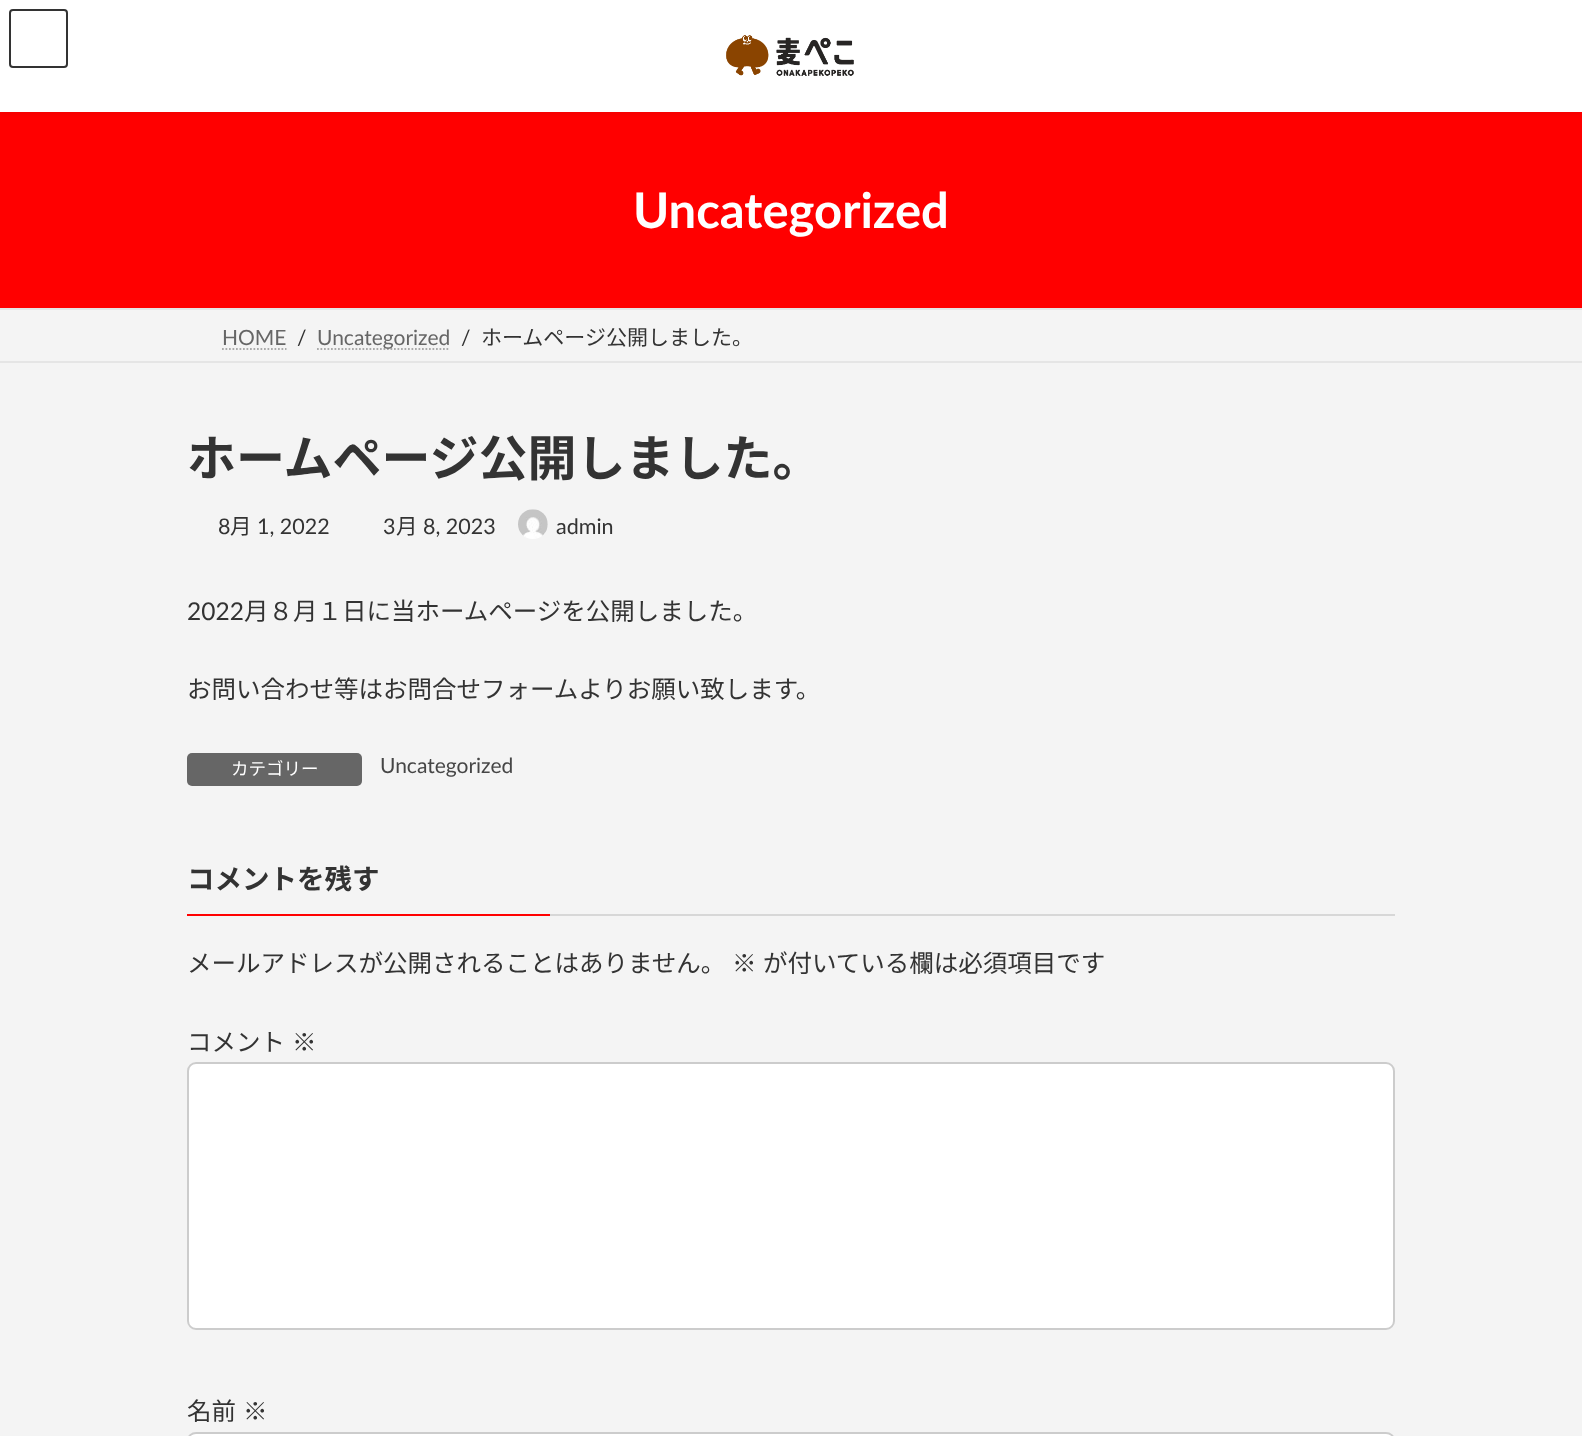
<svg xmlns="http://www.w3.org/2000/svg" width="1582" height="1436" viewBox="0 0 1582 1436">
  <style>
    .t1 { font: bold 49px Lato; fill: #fff; }
    .t2 { font: 21px Lato; fill: #666; }
    .t3 { font: 21px Lato; fill: #333; }
    .t4 { font: 21px Noto Sans JP; fill: #333; }
    .t5 { font: bold 49px Noto Sans JP; fill: #333; }
    .t6 { font: 21.5px Lato; fill: #333; }
    .t7 { font: 21.5px Noto Sans JP; fill: #333; }
    .t8 { font: 24.5px Lato; fill: #333; }
    .t9 { font: 24.5px Noto Sans JP; fill: #333; }
    .t10 { font: 17.5px Noto Sans JP; fill: #fff; }
    .t11 { font: 21px Lato; fill: #464646; }
    .t12 { font: bold 27.5px Noto Sans JP; fill: #333; }
  </style>
  <rect width="100%" height="100%" fill="#f4f4f4"/>
  <rect x="0" y="112" width="1582" height="196" fill="#f00"/>
  <rect x="0" y="2" width="1582" height="112" fill="#0000000d" filter="blur(2.5px)"/>
  <rect x="0" y="0" width="1582" height="112" fill="#fff"/>
  <image x="726" y="35" width="128" height="41" href="images/1.png"/>
  <rect x="10" y="10" width="57" height="57" rx="3" fill="none" stroke="#333" stroke-width="2"/>
  <text x="633" y="228" class="t1">Uncategorized</text>
  <rect x="0" y="308" width="1582" height="2" fill="#e5e5e5"/>
  <rect x="0" y="361" width="1582" height="2" fill="#e5e5e5"/>
  <text x="222" y="345" class="t2">HOME</text>
  <path d="M222 349H286.5" fill="none" stroke="#ababab" stroke-width="1.8" stroke-dasharray="1.75 1.75"/>
  <text x="297" y="345" class="t3">/</text>
  <path d="M317 349H450" fill="none" stroke="#ababab" stroke-width="1.8" stroke-dasharray="1.75 1.75"/>
  <text x="317" y="345" class="t2">Uncategorized</text>
  <text x="461" y="345" class="t3">/</text>
  <text x="481" y="345" class="t4">ホームページ公開しました。</text>
  <text x="187" y="476" class="t5">ホームページ公開しました。</text>
  <text x="218" y="534" class="t6">8</text>
  <text x="230" y="534" class="t7">月</text>
  <text x="257" y="534" class="t6">1, 2022</text>
  <text x="383" y="534" class="t6">3</text>
  <text x="396" y="534" class="t7">月</text>
  <text x="423" y="534" class="t6">8, 2023</text>
  <image x="518" y="509" width="30" height="30" href="images/2.png"/>
  <text x="556" y="534" class="t6">admin</text>
  <text x="187" y="620" class="t8">2022</text>
  <text x="244" y="620" class="t9">月８月１日に当ホームページを公開しました。</text>
  <text x="187" y="698" class="t9">お問い合わせ等はお問合せフォームよりお願い致します。</text>
  <rect x="187" y="753" width="175" height="33" rx="5" fill="#666"/>
  <text x="231" y="775" class="t10">カテゴリー</text>
  <text x="380" y="773" class="t11">Uncategorized</text>
  <rect x="550" y="914" width="845" height="2" fill="#d7d7d7"/>
  <text x="187" y="889" class="t12">コメントを残す</text>
  <rect x="187" y="914" width="363" height="2" fill="#f00"/>
  <text x="187" y="972" class="t9">メールアドレスが公開されることはありません。</text>
  <text x="732" y="972" class="t9">※</text>
  <text x="763" y="972" class="t9">が付いている欄は必須項目です</text>
  <text x="187" y="1051" class="t9">コメント</text>
  <text x="292" y="1051" class="t9">※</text>
  <rect x="187" y="1062" width="1208" height="268" rx="9" fill="#fff"/>
  <rect x="188" y="1063" width="1206" height="266" rx="8" fill="none" stroke="#00000033" stroke-width="2"/>
  <text x="187" y="1420" class="t9">名前</text>
  <text x="243" y="1420" class="t9">※</text>
  <rect x="187" y="1432" width="1208" height="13" rx="9" fill="#fff"/>
  <rect x="188" y="1433" width="1206" height="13" rx="8" fill="none" stroke="#00000033" stroke-width="2"/>
</svg>
